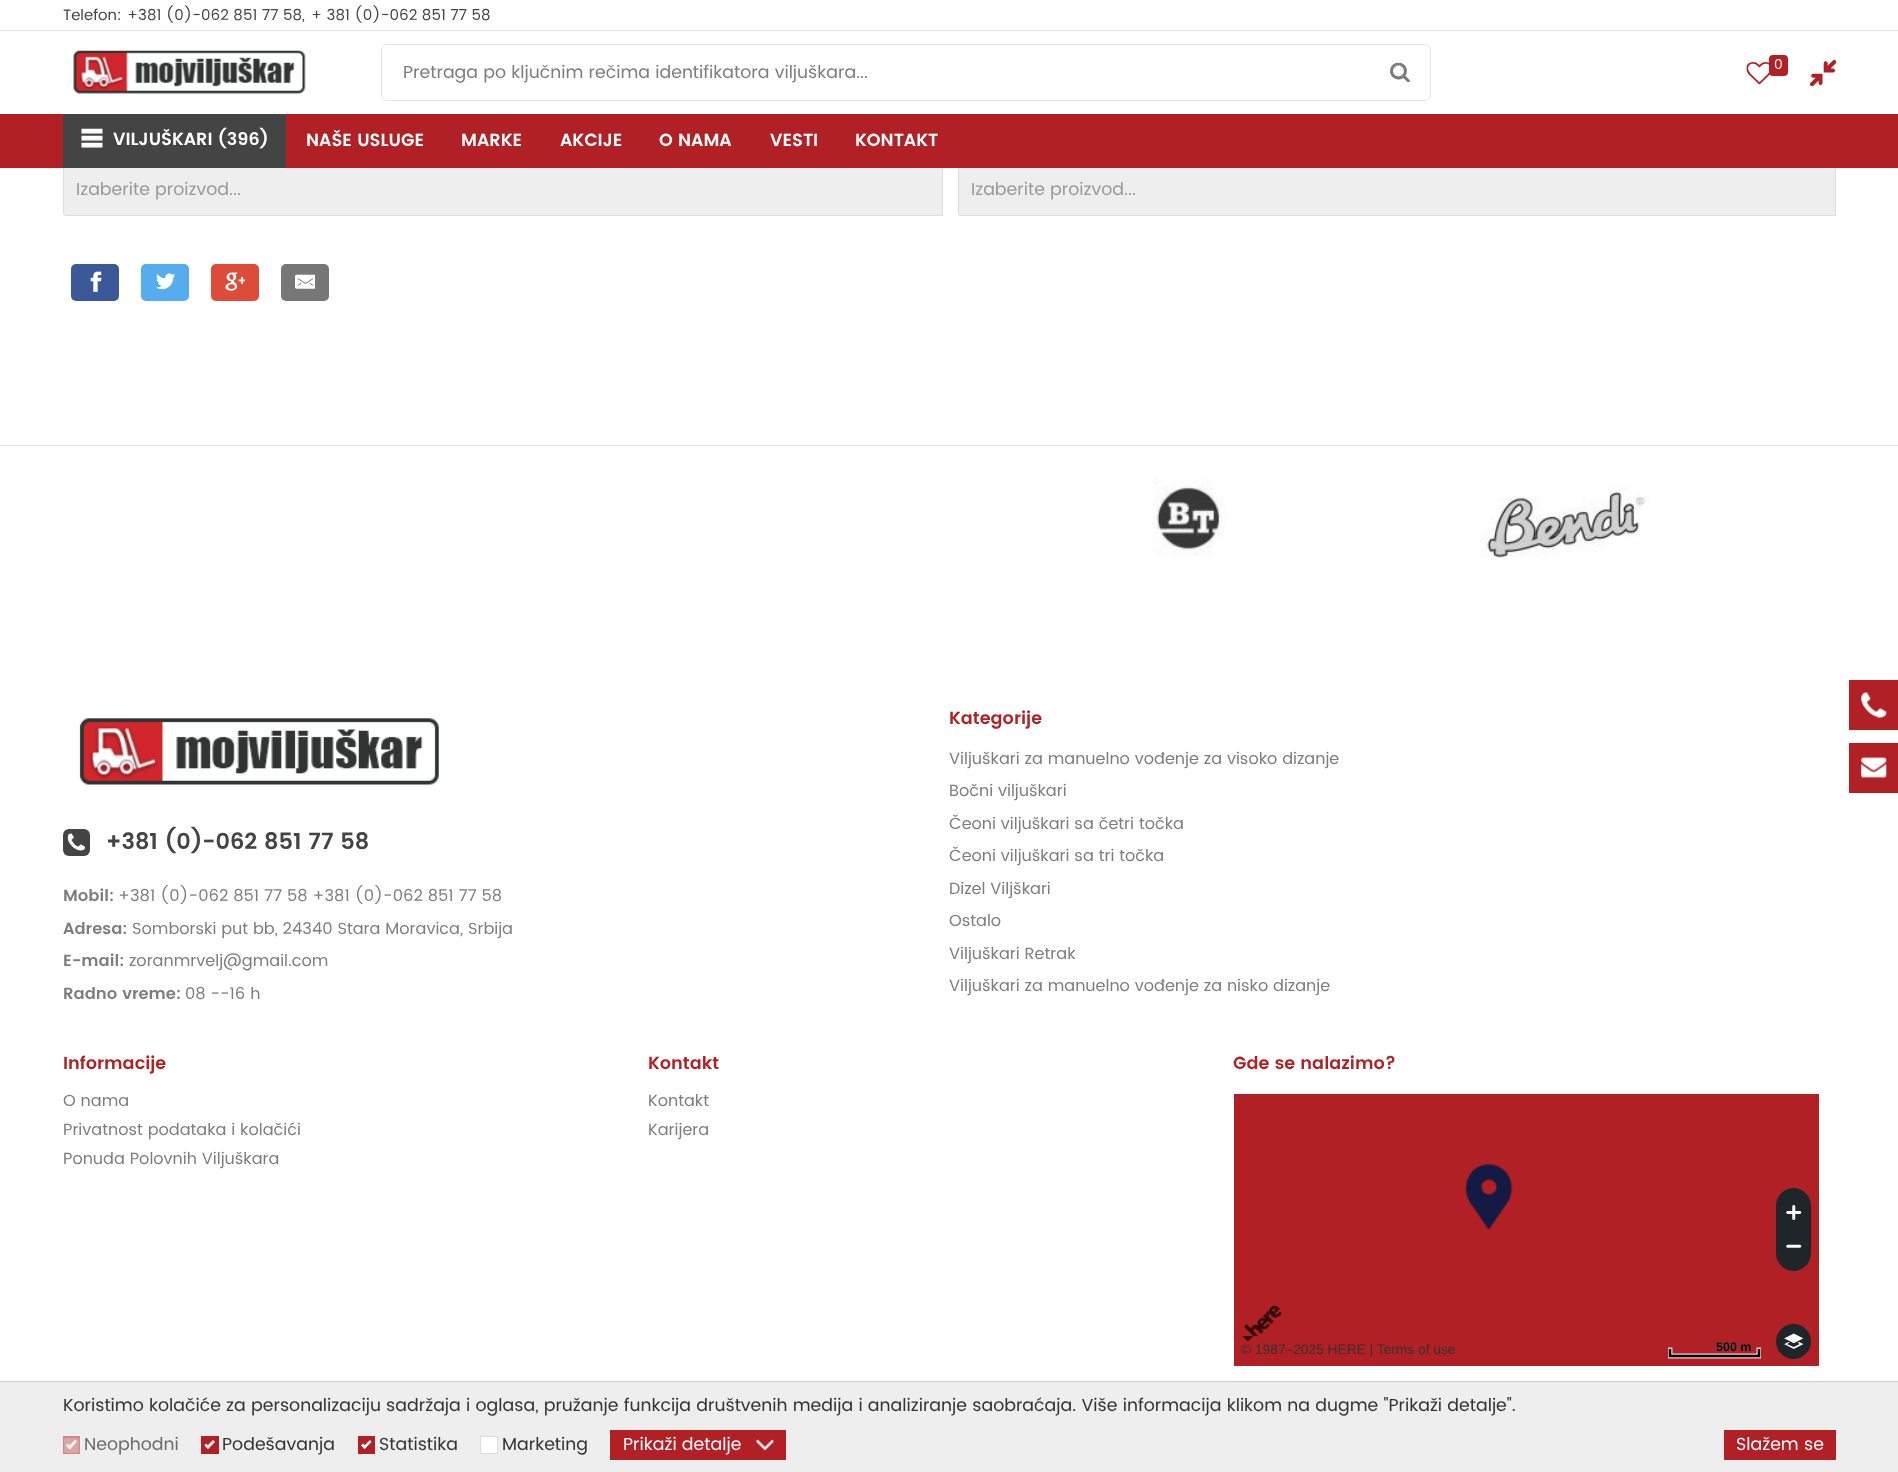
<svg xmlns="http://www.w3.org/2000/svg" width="1898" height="1472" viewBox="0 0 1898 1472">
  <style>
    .t1 { font: italic 15px Poppins; fill: #444; }
    .t2 { font: italic 17.5px Poppins; fill: #7d7d7d; }
    .t3 { font: italic 13.75px Poppins; fill: #fff; }
    .t4 { font: italic 600 17.5px Poppins; fill: #fff; }
    .t5 { font: italic 17.5px Poppins; fill: #999; }
    .t6 { font: italic 600 22.5px Poppins; fill: #444; }
    .t7 { font: italic 600 16.25px Poppins; fill: #7d7d7d; }
    .t8 { font: italic 16.25px Poppins; fill: #7d7d7d; }
    .t9 { font: italic 600 17.5px Poppins; fill: #b12024; }
    .t10 { font: 13.75px Liberation Sans; fill: #333; }
    .t11 { font: bold 12.5px Liberation Sans; fill: #7d7d7d; }
    .t12 { font: bold 12.5px Liberation Sans; fill: #000; }
    .t13 { font: italic 17.5px Poppins; fill: #333; }
    .t14 { font: italic 17.5px Poppins; fill: #6b6b6b; }
    .t15 { font: italic 17.5px Poppins; fill: #fff; }
  </style>
  <defs>
    <clipPath id="clip1"><rect x="1668" y="1324" width="93" height="35"/></clipPath>
  </defs>
  <rect width="100%" height="100%" fill="#fff"/>
  <rect x="0" y="30" width="1898" height="1" fill="#e3e3e3"/>
  <text x="63" y="20" class="t1">Telefon:</text>
  <text x="127" y="20" class="t1">+381 (0)-062 851 77 58,</text>
  <text x="311" y="20" class="t1">+ 381 (0)-062 851 77 58</text>
  <image x="73" y="50" width="233" height="44" href="images/1.png"/>
  <rect x="381.5" y="44.5" width="1049" height="56" rx="5.5" fill="none" stroke="#e3e3e3"/>
  <text x="403" y="78" class="t2">Pretraga po ključnim rečima identifikatora viljuškara...</text>
  <image x="1390" y="62" width="20" height="21" href="images/2.png"/>
  <image x="1746" y="62" width="24" height="23" href="images/3.png"/>
  <rect x="1769" y="55" width="19" height="21" rx="4" fill="#b12024"/>
  <text x="1774" y="69" class="t3">0</text>
  <image x="1810" y="60" width="26" height="26" href="images/4.png"/>
  <path d="M65.5 165.5H942.5V215.5H65.5C64.5 215.5 63.5 214.5 63.5 213.5V167.5C63.5 166.5 64.5 165.5 65.5 165.5Z" fill="#eee" stroke="#ddd"/>
  <path d="M960.5 165.5H1835.5V215.5H960.5C959.5 215.5 958.5 214.5 958.5 213.5V167.5C958.5 166.5 959.5 165.5 960.5 165.5Z" fill="#eee" stroke="#ddd"/>
  <rect x="0" y="114" width="1898" height="54" fill="#b12024"/>
  <rect x="63" y="114" width="223" height="54" fill="#444"/>
  <image x="81" y="128" width="22" height="20" href="images/5.png"/>
  <text x="113" y="145" class="t4">VILJUŠKARI (396)</text>
  <text x="306" y="146" class="t4">NAŠE USLUGE</text>
  <text x="461" y="146" class="t4">MARKE</text>
  <text x="560" y="146" class="t4">AKCIJE</text>
  <text x="659" y="146" class="t4">O NAMA</text>
  <text x="770" y="146" class="t4">VESTI</text>
  <text x="855" y="146" class="t4">KONTAKT</text>
  <text x="76" y="195" class="t5">Izaberite proizvod...</text>
  <text x="971" y="195" class="t5">Izaberite proizvod...</text>
  <rect x="71" y="264" width="48" height="37" rx="5" fill="#3b5998"/>
  <image x="90" y="271" width="12" height="21" href="images/6.png"/>
  <rect x="141" y="264" width="48" height="37" rx="5" fill="#55acee"/>
  <image x="156" y="273" width="19" height="17" href="images/7.png"/>
  <rect x="211" y="264" width="48" height="37" rx="5" fill="#dd4b39"/>
  <image x="225" y="272" width="20" height="19" href="images/8.png"/>
  <rect x="281" y="264" width="48" height="37" rx="5" fill="#777"/>
  <image x="295" y="274" width="20" height="15" href="images/9.png"/>
  <rect x="0" y="445" width="1898" height="1" fill="#e3e3e3"/>
  <image x="1154" y="477" width="74" height="80" href="images/10.png"/>
  <image x="1480" y="487" width="170" height="71" href="images/11.png"/>
  <image x="79" y="718" width="360" height="67" href="images/12.png"/>
  <rect x="63" y="829" width="27" height="27" rx="6" fill="#444"/>
  <image x="67" y="833" width="18" height="18" href="images/13.png"/>
  <text x="106" y="849" class="t6">+381 (0)-062 851 77 58</text>
  <text x="63" y="901" class="t7">Mobil:</text>
  <text x="118" y="901" class="t8">+381 (0)-062 851 77 58 +381 (0)-062 851 77 58</text>
  <text x="63" y="934" class="t7">Adresa:</text>
  <text x="132" y="934" class="t8">Somborski put bb, 24340 Stara Moravica, Srbija</text>
  <text x="63" y="966" class="t7">E-mail:</text>
  <text x="129" y="966" class="t8">zoranmrvelj@gmail.com</text>
  <text x="63" y="999" class="t7">Radno vreme:</text>
  <text x="185" y="999" class="t8">08 --16 h</text>
  <text x="949" y="724" class="t9">Kategorije</text>
  <text x="949" y="764" class="t8">Viljuškari za manuelno vođenje za visoko dizanje</text>
  <text x="949" y="796" class="t8">Bočni viljuškari</text>
  <text x="949" y="829" class="t8">Čeoni viljuškari sa četri točka</text>
  <text x="949" y="861" class="t8">Čeoni viljuškari sa tri točka</text>
  <text x="949" y="894" class="t8">Dizel Viljškari</text>
  <text x="949" y="926" class="t8">Ostalo</text>
  <text x="949" y="959" class="t8">Viljuškari Retrak</text>
  <text x="949" y="991" class="t8">Viljuškari za manuelno vođenje za nisko dizanje</text>
  <text x="63" y="1069" class="t9">Informacije</text>
  <text x="63" y="1106" class="t8">O nama</text>
  <text x="63" y="1135" class="t8">Privatnost podataka i kolačići</text>
  <text x="63" y="1164" class="t8">Ponuda Polovnih Viljuškara</text>
  <text x="648" y="1069" class="t9">Kontakt</text>
  <text x="648" y="1106" class="t8">Kontakt</text>
  <text x="648" y="1135" class="t8">Karijera</text>
  <text x="1233" y="1069" class="t9">Gde se nalazimo?</text>
  <rect x="1234" y="1094" width="585" height="272" fill="#b12024"/>
  <image x="1465" y="1164" width="48" height="66" href="images/14.png"/>
  <image x="1243" y="1305" width="39" height="36" href="images/15.png"/>
  <text x="1241" y="1354" class="t10">© 1987–2025 HERE | Terms of use</text>
  <path d="M1793.5 1188C1803 1188 1811 1196 1811 1205.5V1230H1776V1205.5C1776 1196 1784 1188 1793.5 1188Z" fill="#1f262a"/>
  <image x="1786" y="1205" width="16" height="15" href="images/16.png"/>
  <path d="M1776 1229H1811V1253.5C1811 1263 1803 1271 1793.5 1271C1784 1271 1776 1263 1776 1253.5Z" fill="#1f262a"/>
  <image x="1786" y="1244" width="16" height="4" href="images/17.png"/>
  <g clip-path="url(#clip1)">
    <path d="M1670 1347.5V1356H1759V1347.5" fill="none" stroke="#efd2d3" stroke-width="5"/>
  </g>
  <path d="M1670 1349V1356H1759V1349" fill="none" stroke="#000" stroke-width="2.5"/>
  <text x="1716" y="1351" class="t11">500 m</text>
  <text x="1716" y="1351" class="t12">500 m</text>
  <circle cx="1793.5" cy="1341.5" r="17.5" fill="#1f262a"/>
  <image x="1784" y="1333" width="20" height="16" href="images/18.png"/>
  <rect x="1849" y="680" width="49" height="50" fill="#b12024"/>
  <image x="1861" y="692" width="26" height="26" href="images/19.png"/>
  <rect x="1849" y="743" width="49" height="50" fill="#b12024"/>
  <image x="1861" y="757" width="26" height="21" href="images/20.png"/>
  <rect x="0" y="1382" width="1898" height="90" fill="#eee"/>
  <rect x="0" y="1381" width="1898" height="1" fill="#ccc"/>
  <text x="63" y="1411" class="t13">Koristimo kolačiće za personalizaciju sadržaja i oglasa, pružanje funkcija društvenih medija i analiziranje saobraćaja. Više informacija klikom na dugme "Prikaži detalje".</text>
  <rect x="63" y="1436" width="17" height="18" fill="#d08789"/>
  <path d="M67.5 1447L75 1440L76.5 1442L69.5 1449Z" fill="#f7f7f7"/>
  <path d="M66 1445.5L67.5 1443.5L71 1447L69.5 1449Z" fill="#f7f7f7"/>
  <rect x="64" y="1438" width="15" height="15" rx="2.5" fill="#eeeeee4d"/>
  <path d="M67 1445L70 1448L76 1440.5" fill="none" stroke="#eee" stroke-width="2.4"/>
  <text x="84" y="1450" class="t14">Neophodni</text>
  <rect x="201" y="1436" width="18" height="18" fill="#b12024"/>
  <path d="M206 1447L213 1440L215 1442L208 1449Z" fill="#fff"/>
  <path d="M204.5 1445.5L206 1443.5L209.5 1447L208 1449Z" fill="#fff"/>
  <text x="222" y="1450" class="t13">Podešavanja</text>
  <rect x="358" y="1436" width="17" height="18" fill="#b12024"/>
  <path d="M363 1447L370 1440L371.5 1442L364.5 1449Z" fill="#fff"/>
  <path d="M361 1445.5L363 1443.5L366.5 1447L364.5 1449Z" fill="#fff"/>
  <text x="379" y="1450" class="t13">Statistika</text>
  <rect x="480.5" y="1436.5" width="17" height="17" fill="#fff" stroke="#ddd"/>
  <text x="502" y="1450" class="t13">Marketing</text>
  <rect x="610" y="1430" width="176" height="30" fill="#b12024"/>
  <text x="623" y="1450" class="t15">Prikaži detalje</text>
  <image x="756" y="1439" width="18" height="12" href="images/21.png"/>
  <rect x="1724" y="1430" width="112" height="30" fill="#b12024"/>
  <text x="1736" y="1450" class="t15">Slažem se</text>
</svg>
